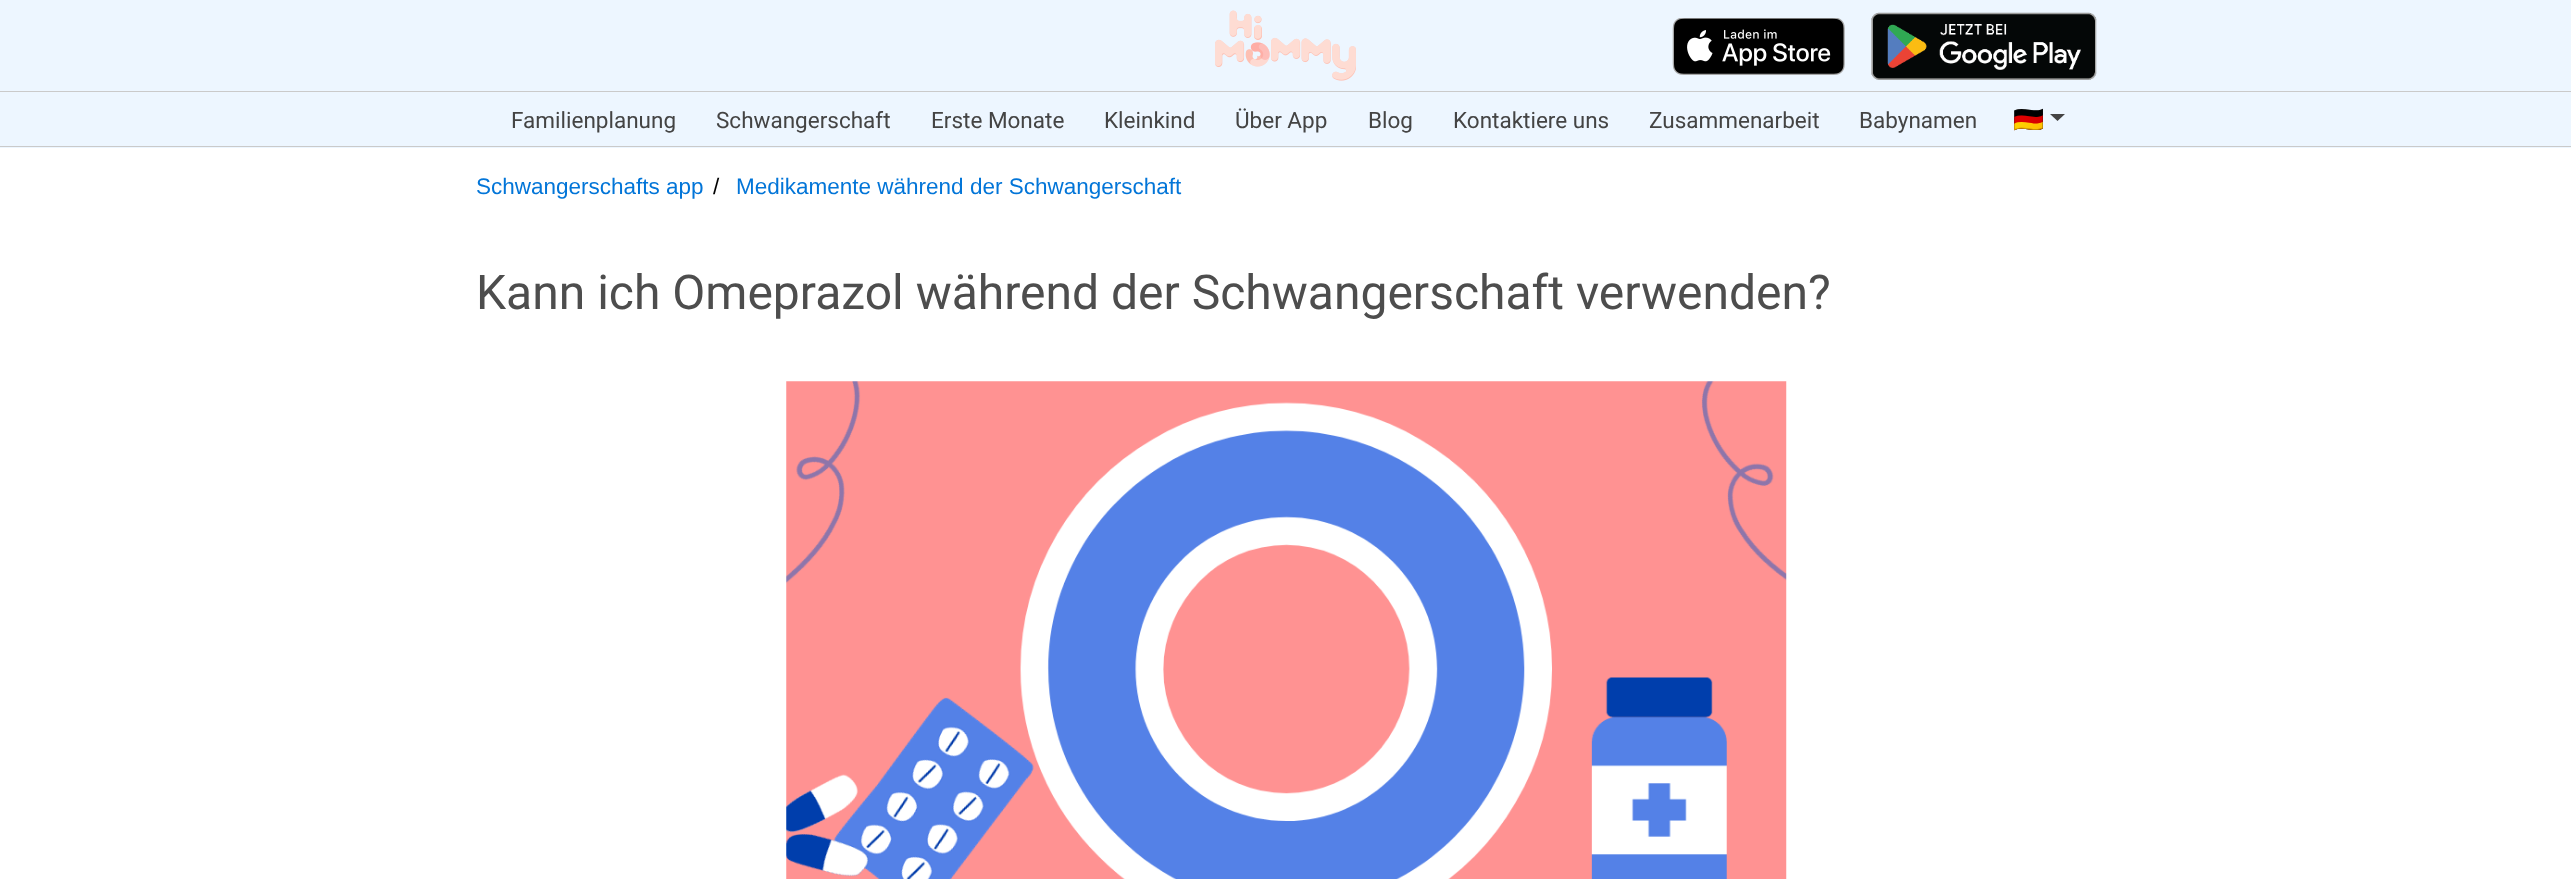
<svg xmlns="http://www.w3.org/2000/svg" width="2571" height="879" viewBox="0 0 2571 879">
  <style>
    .t1 { font: 22.5px Roboto; fill: #444; }
    .t2 { font: 25px Noto Color Emoji; fill: #444; }
    .t3 { font: 22.5px Liberation Sans; fill: #0275d8; }
    .t4 { font: 22.5px Liberation Sans; fill: #000; }
    .t5 { font: 48px Roboto; fill: #4d4d4d; }
  </style>
  <rect width="100%" height="100%" fill="#fff"/>
  <rect x="0" y="0" width="2571" height="148" fill="#edf6ff"/>
  <image x="1215" y="10" width="141" height="71" href="images/1.png"/>
  <image x="1672" y="18" width="173" height="57" href="images/2.png"/>
  <image x="1871" y="12" width="226" height="68" href="images/3.png"/>
  <rect x="0" y="91" width="2571" height="1" fill="#cacaca"/>
  <rect x="0" y="146" width="2571" height="1" fill="#cacaca"/>
  <text x="511" y="128" class="t1">Familienplanung</text>
  <text x="716" y="128" class="t1">Schwangerschaft</text>
  <text x="931" y="128" class="t1">Erste Monate</text>
  <text x="1104" y="128" class="t1">Kleinkind</text>
  <text x="1235" y="128" class="t1">Über App</text>
  <text x="1368" y="128" class="t1">Blog</text>
  <text x="1453" y="128" class="t1">Kontaktiere uns</text>
  <text x="1649" y="128" class="t1">Zusammenarbeit</text>
  <text x="1859" y="128" class="t1">Babynamen</text>
  <text x="2013" y="128" class="t2">🇩🇪</text>
  <path d="M2050 114H2065L2057.5 121Z" fill="#444"/>
  <text x="476" y="194" class="t3">Schwangerschafts app</text>
  <text x="713" y="194" class="t4">/</text>
  <text x="736" y="194" class="t3">Medikamente während der Schwangerschaft</text>
  <text x="476" y="309" class="t5">Kann ich Omeprazol während der Schwangerschaft verwenden?</text>
  <image x="786" y="381" width="1001" height="498" href="images/4.png"/>
</svg>
